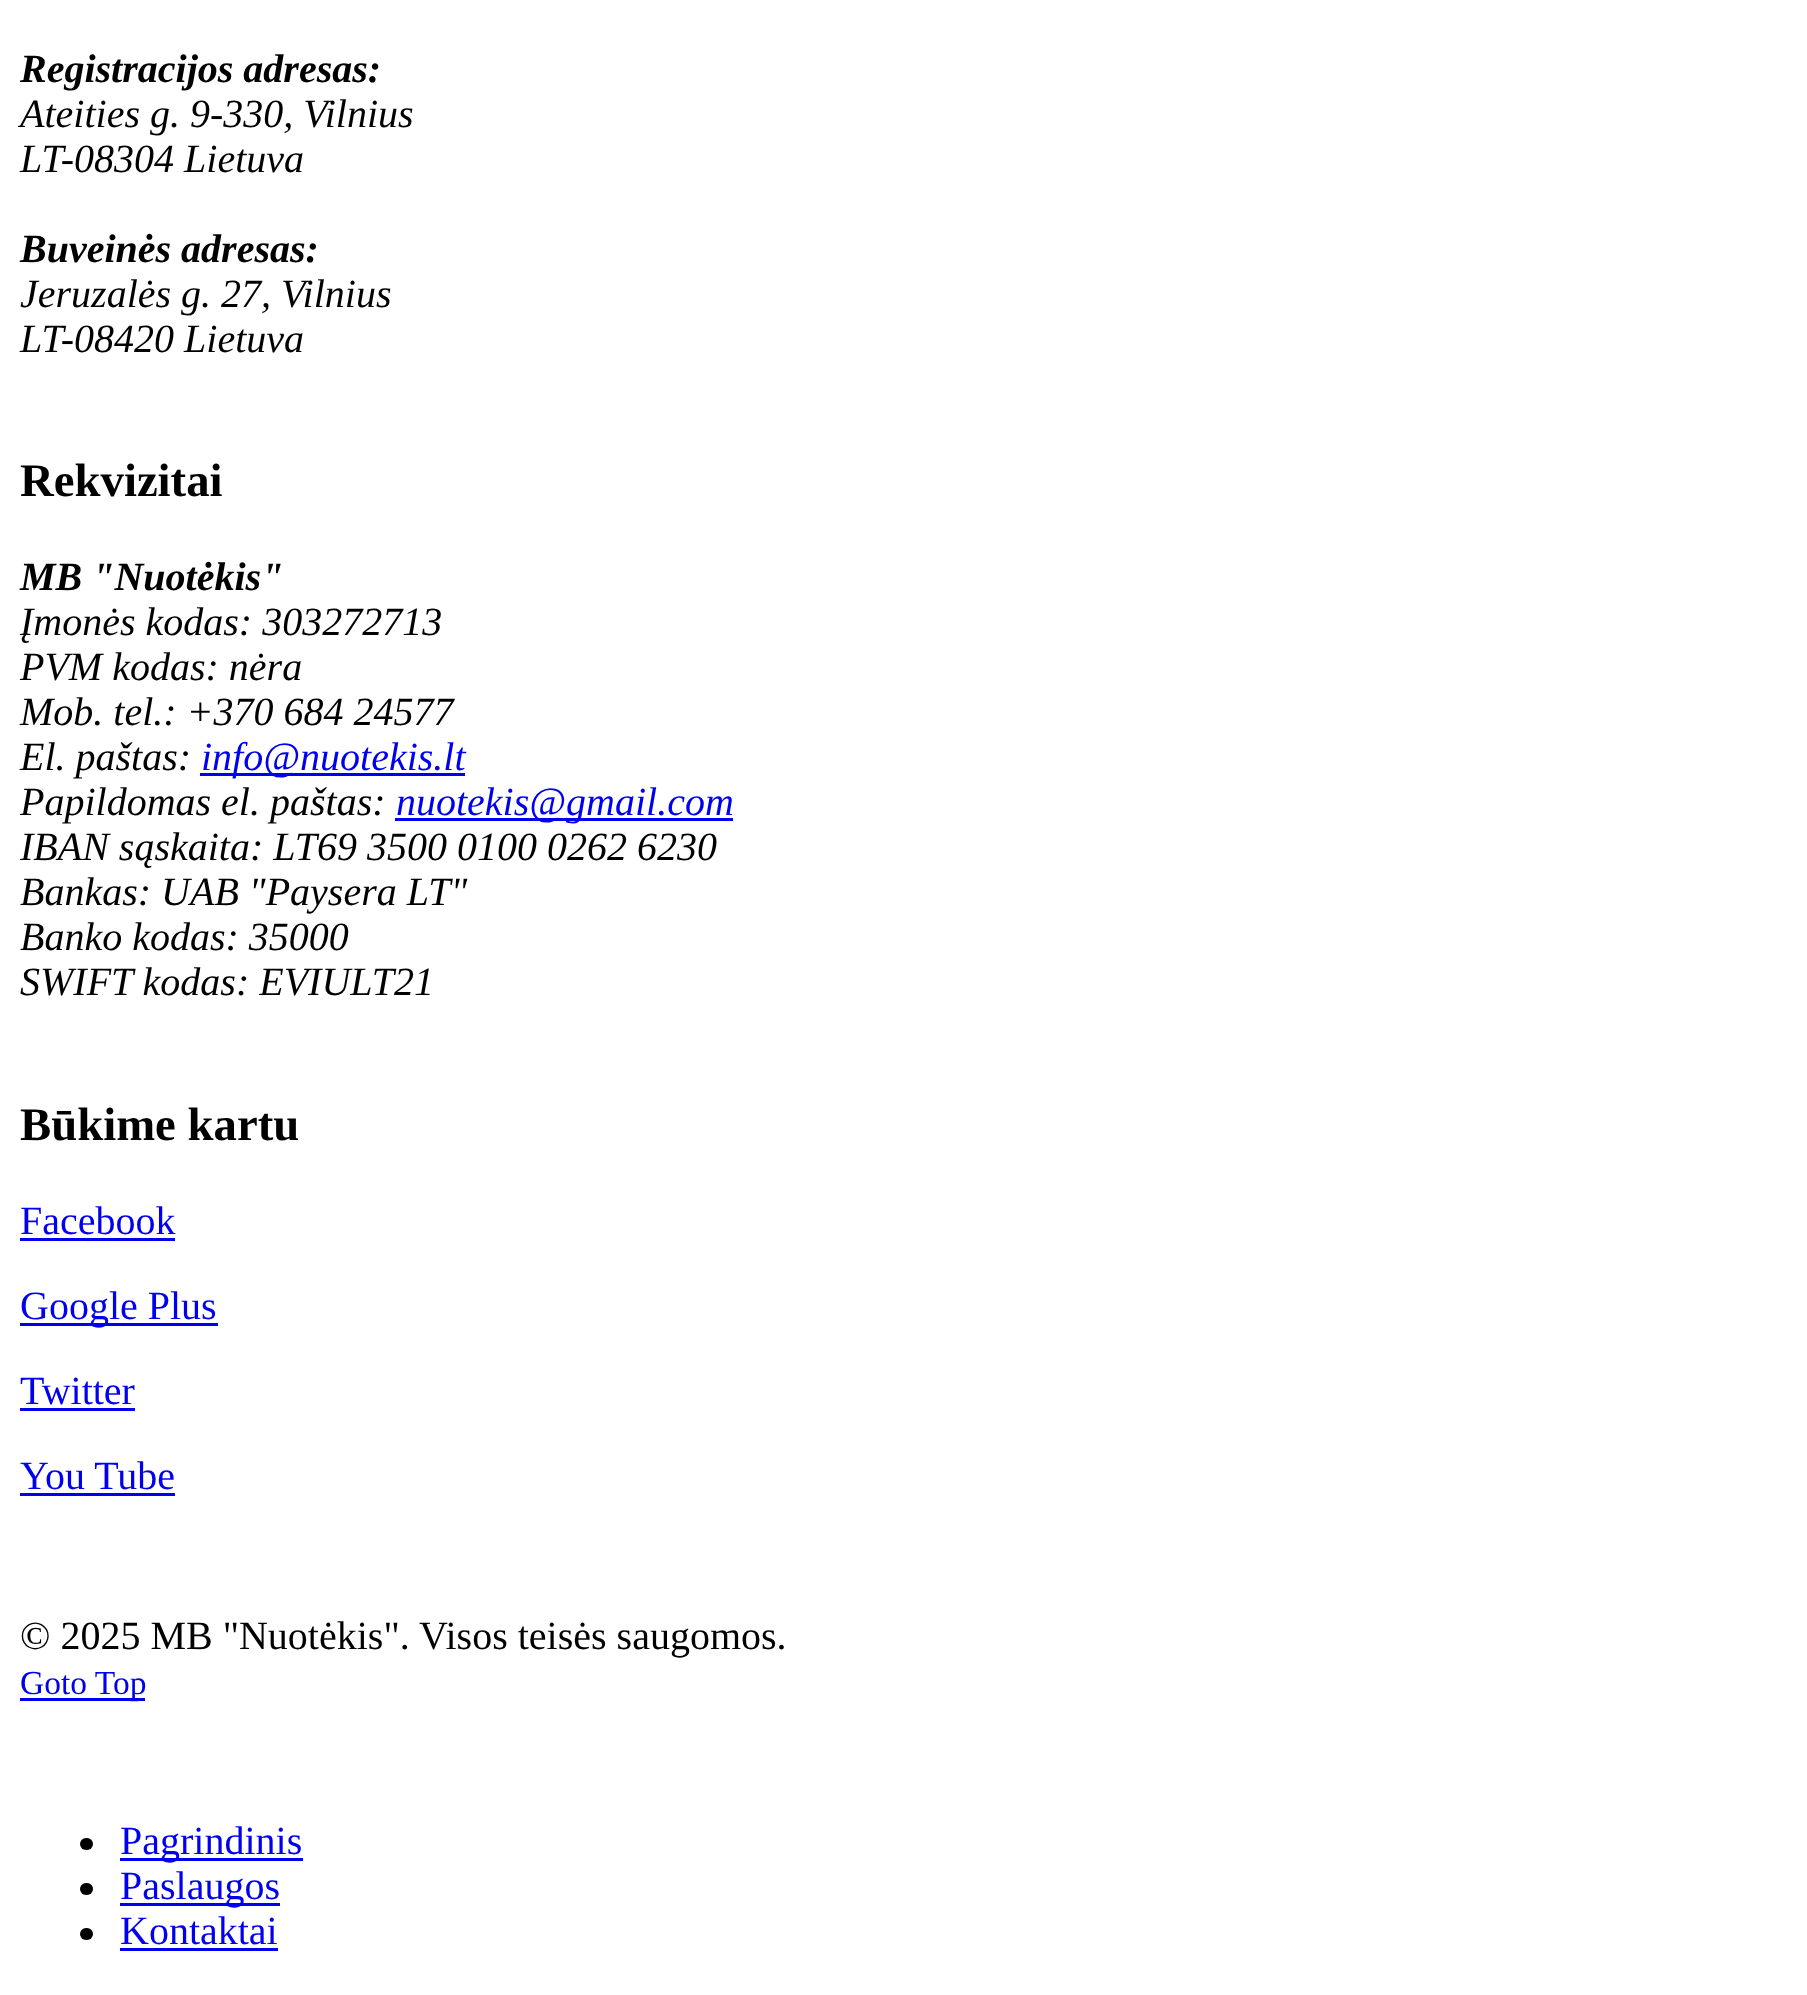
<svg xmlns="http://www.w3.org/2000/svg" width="1807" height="1995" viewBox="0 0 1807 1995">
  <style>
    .t1 { font: italic bold 40px Liberation Serif; fill: #000; }
    .t2 { font: italic 40px Liberation Serif; fill: #000; }
    .t3 { font: bold 46.75px Liberation Serif; fill: #000; }
    .t4 { font: italic 40px Liberation Serif; fill: #00e; }
    .t5 { font: 40px Liberation Serif; fill: #00e; }
    .t6 { font: 40px Liberation Serif; fill: #000; }
    .t7 { font: 33.5px Liberation Serif; fill: #00e; }
  </style>
  <rect width="100%" height="100%" fill="#fff"/>
  <text x="20" y="82" class="t1">Registracijos adresas:</text>
  <text x="20" y="127" class="t2">Ateities g. 9-330, Vilnius</text>
  <text x="20" y="172" class="t2">LT-08304 Lietuva</text>
  <text x="20" y="262" class="t1">Buveinės adresas:</text>
  <text x="20" y="307" class="t2">Jeruzalės g. 27, Vilnius</text>
  <text x="20" y="352" class="t2">LT-08420 Lietuva</text>
  <text x="20" y="496" class="t3">Rekvizitai</text>
  <text x="20" y="590" class="t1">MB "Nuotėkis"</text>
  <text x="20" y="635" class="t2">Įmonės kodas: 303272713</text>
  <text x="20" y="680" class="t2">PVM kodas: nėra</text>
  <text x="20" y="725" class="t2">Mob. tel.: +370 684 24577</text>
  <text x="20" y="770" class="t2">El. paštas:</text>
  <rect x="200" y="773" width="265" height="3" fill="#00e"/>
  <text x="201" y="770" class="t4">info@nuotekis.lt</text>
  <text x="20" y="815" class="t2">Papildomas el. paštas:</text>
  <rect x="395" y="818" width="338" height="3" fill="#00e"/>
  <text x="396" y="815" class="t4">nuotekis@gmail.com</text>
  <text x="20" y="860" class="t2">IBAN sąskaita: LT69 3500 0100 0262 6230</text>
  <text x="20" y="905" class="t2">Bankas: UAB "Paysera LT"</text>
  <text x="20" y="950" class="t2">Banko kodas: 35000</text>
  <text x="20" y="995" class="t2">SWIFT kodas: EVIULT21</text>
  <text x="20" y="1140" class="t3">Būkime kartu</text>
  <text x="20" y="1234" class="t5">Facebook</text>
  <rect x="20" y="1238" width="155" height="3" fill="#00e"/>
  <rect x="20" y="1323" width="198" height="3" fill="#00e"/>
  <text x="20" y="1319" class="t5">Google Plus</text>
  <text x="20" y="1404" class="t5">Twitter</text>
  <rect x="20" y="1408" width="115" height="3" fill="#00e"/>
  <text x="20" y="1489" class="t5">You Tube</text>
  <rect x="20" y="1493" width="155" height="3" fill="#00e"/>
  <text x="20" y="1649" class="t6">© 2025 MB "Nuotėkis". Visos teisės saugomos.</text>
  <rect x="20" y="1698" width="125" height="3" fill="#00e"/>
  <text x="20" y="1694" class="t7">Goto Top</text>
  <rect x="80" y="1838" width="13" height="12" rx="6" fill="#000"/>
  <rect x="120" y="1858" width="183" height="3" fill="#00e"/>
  <text x="120" y="1854" class="t5">Pagrindinis</text>
  <rect x="80" y="1883" width="13" height="12" rx="6" fill="#000"/>
  <rect x="120" y="1903" width="160" height="3" fill="#00e"/>
  <text x="120" y="1899" class="t5">Paslaugos</text>
  <rect x="80" y="1928" width="13" height="12" rx="6" fill="#000"/>
  <text x="120" y="1944" class="t5">Kontaktai</text>
  <rect x="120" y="1948" width="158" height="3" fill="#00e"/>
</svg>
